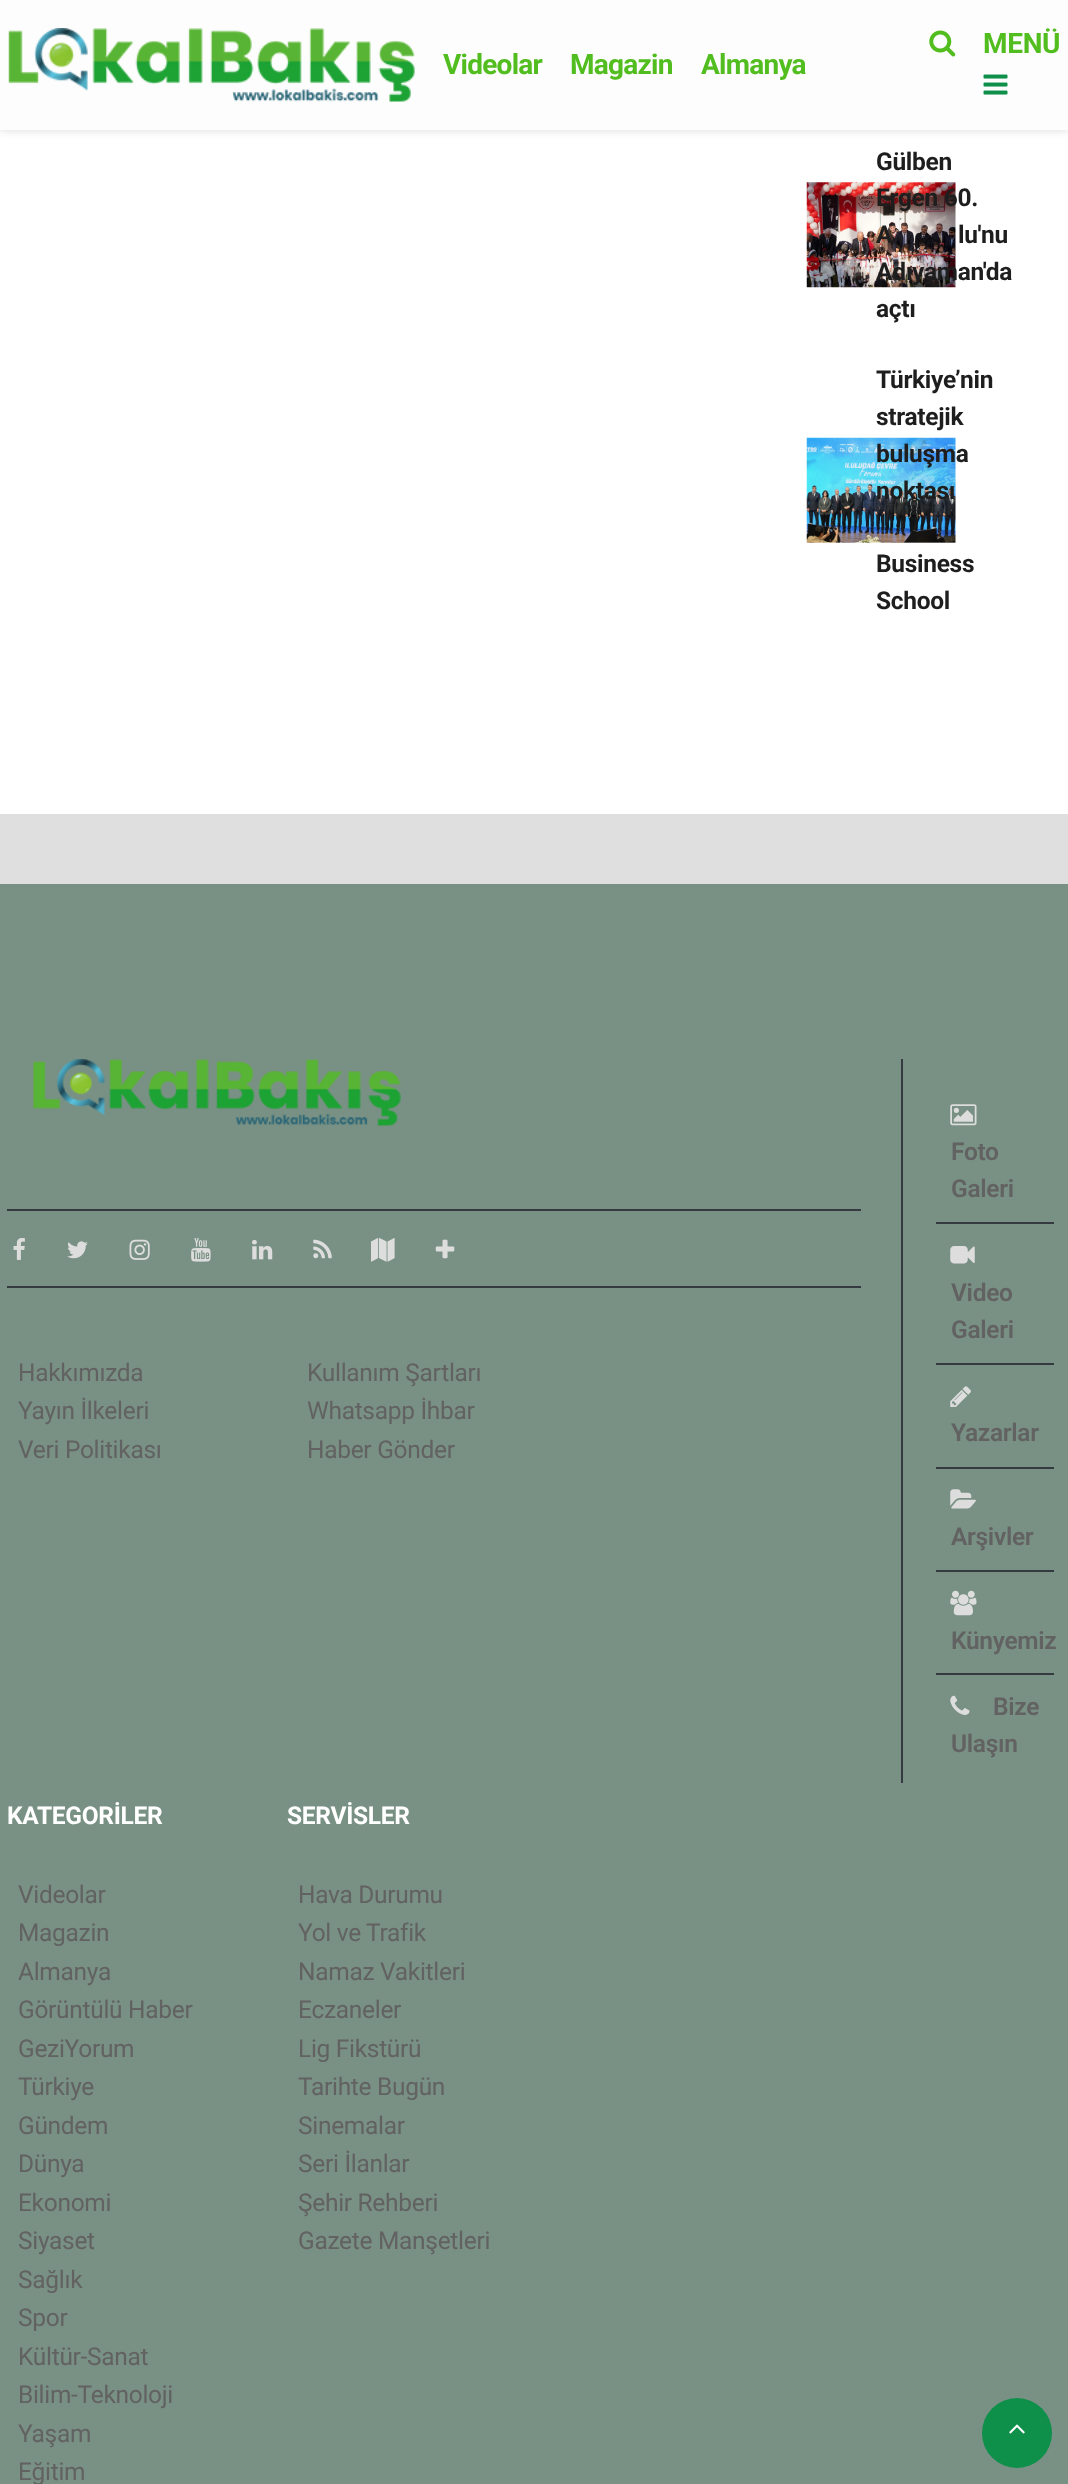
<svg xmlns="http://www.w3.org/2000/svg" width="1068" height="2484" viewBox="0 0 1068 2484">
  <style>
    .t1 { font: bold 28px Roboto; letter-spacing: -0.3px; fill: #51bd1e; }
    .t2 { font: bold 28px Roboto; letter-spacing: -0.75px; fill: #51bd1e; }
    .t3 { font: bold 24.5px Roboto; letter-spacing: -0.3px; fill: #1e1e1e; }
    .t4 { font: 24.5px Roboto; letter-spacing: -0.3px; fill: #626262; }
    .t5 { font: 600 24.5px Roboto; letter-spacing: -0.3px; fill: #626262; }
    .t6 { font: bold 24.5px Roboto; letter-spacing: -0.3px; fill: #fff; }
  </style>
  <rect width="100%" height="100%" fill="#dfdfdf"/>
  <rect x="0" y="130" width="1068" height="684" fill="#fff"/>
  <rect x="0" y="0" width="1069" height="130" fill="#00000026" filter="blur(4.5px)"/>
  <rect x="0" y="0" width="1068" height="130" fill="#fdfdfd"/>
  <image x="8" y="28" width="407" height="74" href="images/1.png"/>
  <image x="929" y="30" width="27" height="27" href="images/2.png"/>
  <text x="983" y="53" class="t1">MENÜ</text>
  <image x="983" y="74" width="25" height="21" href="images/3.png"/>
  <text x="443" y="74" class="t2">Videolar</text>
  <text x="570" y="74" class="t2">Magazin</text>
  <text x="701" y="74" class="t2">Almanya</text>
  <text x="876" y="170" class="t3">Gülben</text>
  <image x="806" y="182" width="150" height="106" href="images/4.png"/>
  <text x="876" y="206" class="t3">Ergen 60.</text>
  <text x="876" y="243" class="t3">A</text>
  <text x="958" y="243" class="t3">lu'nu</text>
  <text x="876" y="280" class="t3">Adıyaman'da</text>
  <text x="876" y="317" class="t3">açtı</text>
  <text x="876" y="388" class="t3">Türkiye’nin</text>
  <text x="876" y="425" class="t3">stratejik</text>
  <image x="806" y="437" width="150" height="106" href="images/5.png"/>
  <text x="876" y="462" class="t3">buluşma</text>
  <text x="876" y="499" class="t3">noktası</text>
  <text x="876" y="572" class="t3">Business</text>
  <text x="876" y="609" class="t3">School</text>
  <rect x="0" y="884" width="1068" height="1600" fill="#799184"/>
  <rect x="7" y="1209" width="854" height="2" fill="#343a40"/>
  <image x="33" y="1059" width="368" height="67" href="images/6.png"/>
  <rect x="7" y="1286" width="854" height="2" fill="#343a40"/>
  <image x="13" y="1238" width="12" height="22" href="images/7.png"/>
  <image x="67" y="1241" width="21" height="18" href="images/8.png"/>
  <image x="129" y="1239" width="21" height="21" href="images/9.png"/>
  <image x="191" y="1238" width="20" height="24" href="images/10.png"/>
  <image x="252" y="1240" width="21" height="20" href="images/11.png"/>
  <image x="313" y="1239" width="19" height="20" href="images/12.png"/>
  <image x="371" y="1238" width="24" height="24" href="images/13.png"/>
  <image x="435" y="1239" width="20" height="20" href="images/14.png"/>
  <text x="18" y="1381" class="t4">Hakkımızda</text>
  <text x="18" y="1419" class="t4">Yayın İlkeleri</text>
  <text x="18" y="1458" class="t4">Veri Politikası</text>
  <text x="307" y="1381" class="t4">Kullanım Şartları</text>
  <text x="307" y="1419" class="t4">Whatsapp İhbar</text>
  <text x="307" y="1458" class="t4">Haber Gönder</text>
  <rect x="901" y="1059" width="2" height="724" fill="#343a40"/>
  <rect x="936" y="1222" width="118" height="2" fill="#343a40"/>
  <image x="950" y="1104" width="27" height="22" href="images/15.png"/>
  <text x="951" y="1160" class="t5">Foto</text>
  <text x="951" y="1197" class="t5">Galeri</text>
  <rect x="936" y="1363" width="118" height="2" fill="#343a40"/>
  <image x="950" y="1246" width="25" height="18" href="images/16.png"/>
  <text x="951" y="1301" class="t5">Video</text>
  <text x="951" y="1338" class="t5">Galeri</text>
  <rect x="936" y="1467" width="118" height="2" fill="#343a40"/>
  <image x="950" y="1386" width="21" height="21" href="images/17.png"/>
  <text x="951" y="1441" class="t5">Yazarlar</text>
  <rect x="936" y="1570" width="118" height="2" fill="#343a40"/>
  <image x="950" y="1489" width="26" height="20" href="images/18.png"/>
  <text x="951" y="1545" class="t5">Arşivler</text>
  <rect x="936" y="1673" width="118" height="2" fill="#343a40"/>
  <image x="950" y="1590" width="27" height="26" href="images/19.png"/>
  <text x="951" y="1649" class="t5">Künyemiz</text>
  <image x="950" y="1695" width="20" height="20" href="images/20.png"/>
  <text x="993" y="1715" class="t5">Bize</text>
  <text x="951" y="1752" class="t5">Ulaşın</text>
  <text x="7" y="1824" class="t6">KATEGORİLER</text>
  <text x="18" y="1903" class="t4">Videolar</text>
  <text x="18" y="1941" class="t4">Magazin</text>
  <text x="18" y="1980" class="t4">Almanya</text>
  <text x="18" y="2018" class="t4">Görüntülü Haber</text>
  <text x="18" y="2057" class="t4">GeziYorum</text>
  <text x="18" y="2095" class="t4">Türkiye</text>
  <text x="18" y="2134" class="t4">Gündem</text>
  <text x="18" y="2172" class="t4">Dünya</text>
  <text x="18" y="2211" class="t4">Ekonomi</text>
  <text x="18" y="2249" class="t4">Siyaset</text>
  <text x="18" y="2288" class="t4">Sağlık</text>
  <text x="18" y="2326" class="t4">Spor</text>
  <text x="18" y="2365" class="t4">Kültür-Sanat</text>
  <text x="18" y="2403" class="t4">Bilim-Teknoloji</text>
  <text x="18" y="2442" class="t4">Yaşam</text>
  <text x="18" y="2480" class="t4">Eğitim</text>
  <text x="287" y="1824" class="t6">SERVİSLER</text>
  <text x="298" y="1903" class="t4">Hava Durumu</text>
  <text x="298" y="1941" class="t4">Yol ve</text>
  <text x="366" y="1941" class="t4">Trafik</text>
  <text x="298" y="1980" class="t4">Namaz Vakitleri</text>
  <text x="298" y="2018" class="t4">Eczaneler</text>
  <text x="298" y="2057" class="t4">Lig Fikstürü</text>
  <text x="298" y="2095" class="t4">Tarihte Bugün</text>
  <text x="298" y="2134" class="t4">Sinemalar</text>
  <text x="298" y="2172" class="t4">Seri İlanlar</text>
  <text x="298" y="2211" class="t4">Şehir Rehberi</text>
  <text x="298" y="2249" class="t4">Gazete Manşetleri</text>
  <circle cx="1017" cy="2433" r="35" fill="#0e8f4a"/>
  <image x="1009" y="2424" width="16" height="10" href="images/21.png"/>
</svg>
